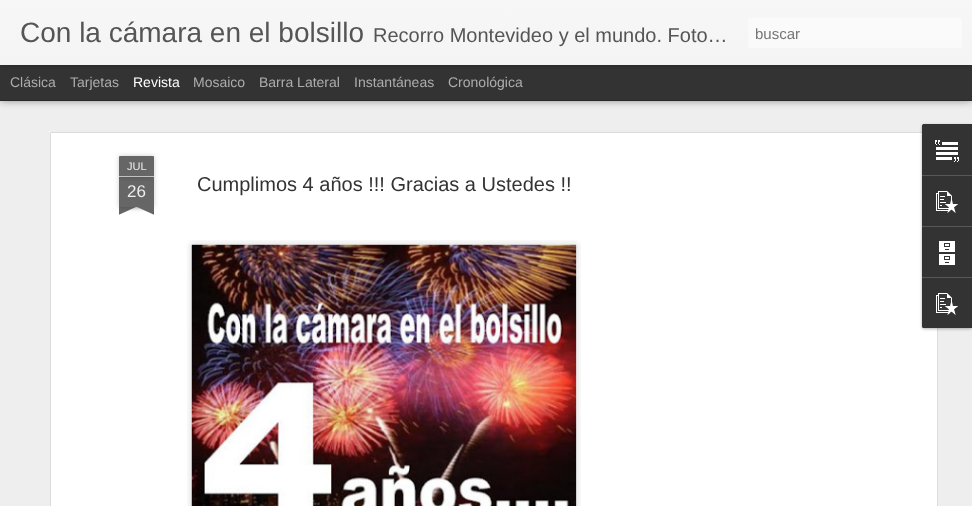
<svg xmlns="http://www.w3.org/2000/svg" width="972" height="506" viewBox="0 0 972 506">
  <style>
    .t1 { font: 28px Liberation Sans; fill: #555; }
    .t2 { font: 20px Liberation Sans; fill: #555; }
    .t3 { font: 15px Liberation Sans; fill: #757575; }
    .t4 { font: 14px Liberation Sans; fill: #adadad; }
    .t5 { font: 14px Liberation Sans; fill: #fff; }
    .t6 { font: 11px Liberation Sans; fill: #eee; }
    .t7 { font: 17px Liberation Sans; fill: #eee; }
    .t8 { font: 20px Liberation Sans; fill: #333; }
  </style>
  <defs>
    <linearGradient id="g1" gradientUnits="userSpaceOnUse" x1="0" y1="0" x2="0" y2="65"><stop offset="0" stop-color="#f7f7f7"/><stop offset="1" stop-color="#f4f4f4"/></linearGradient>
    <clipPath id="clip1"><rect x="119" y="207" width="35" height="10"/></clipPath>
    <clipPath id="clip2"><rect x="119" y="207" width="35" height="10"/></clipPath>
  </defs>
  <rect width="100%" height="100%" fill="#333"/>
  <rect x="0" y="101" width="972" height="405" fill="#eee"/>
  <rect x="0" y="65" width="972" height="35" fill="#00000080" filter="blur(4px)"/>
  <rect x="0" y="65" width="972" height="35" fill="#333"/>
  <rect x="0" y="0" width="972" height="65" fill="#0000004d" filter="blur(2.5px)"/>
  <rect x="0" y="0" width="972" height="65" fill="url(#g1)"/>
  <text x="20" y="42" class="t1">Con la cámara en el bolsillo</text>
  <text x="373" y="42" class="t2">Recorro Montevideo y el mundo. Foto…</text>
  <rect x="748" y="18" width="214" height="30" rx="3" fill="#fafafa"/>
  <text x="755" y="39" class="t3">buscar</text>
  <text x="10" y="87" class="t4">Clásica</text>
  <text x="70" y="87" class="t4">Tarjetas</text>
  <text x="133" y="87" class="t5">Revista</text>
  <text x="193" y="87" class="t4">Mosaico</text>
  <text x="259" y="87" class="t4">Barra Lateral</text>
  <text x="354" y="87" class="t4">Instantáneas</text>
  <text x="448" y="87" class="t4">Cronológica</text>
  <rect x="49" y="131" width="890" height="375" fill="#fff"/>
  <image x="49" y="131" width="890" height="375" href="images/1.png"/>
  <rect x="119" y="177" width="35" height="30" fill="#00000033" filter="blur(2.5px)"/>
  <rect x="119" y="177" width="35" height="30" fill="#666"/>
  <rect x="119" y="156" width="35" height="21" rx="1" fill="#00000033" filter="blur(2.5px)"/>
  <path d="M120 156H153C153.5 156 154 156.5 154 157V177H119V157C119 156.5 119.5 156 120 156Z" fill="#666"/>
  <rect x="119" y="176" width="35" height="1" fill="#c2c2c2"/>
  <text x="127" y="170" class="t6">JUL</text>
  <text x="127" y="197" class="t7">26</text>
  <g clip-path="url(#clip1)">
    <rect x="110" y="197" width="50" height="10" fill="#00000033" filter="blur(2.5px)"/>
  </g>
  <g clip-path="url(#clip2)">
    <path d="M110 208L156 187L160 196L114 217Z" fill="#666"/>
  </g>
  <g clip-path="url(#clip1)">
    <rect x="113" y="197" width="50" height="10" fill="#00000033" filter="blur(2.5px)"/>
  </g>
  <g clip-path="url(#clip2)">
    <path d="M117 187L163 208L159 217L113 196Z" fill="#666"/>
  </g>
  <text x="197" y="191" class="t8">Cumplimos 4 años !!! Gracias a Ustedes !!</text>
  <image x="187" y="240" width="394" height="266" href="images/2.png"/>
  <image x="191" y="244" width="386" height="262" href="images/3.png"/>
  <rect x="922" y="125" width="50" height="204" rx="2" fill="#0000004d" filter="blur(1.5px)"/>
  <path d="M924 124H972V328H924C923 328 922 327 922 326V126C922 125 923 124 924 124Z" fill="#333"/>
  <path d="M924 124H972V175H922V126C922 125 923 124 924 124Z" fill="#333"/>
  <image x="935" y="140" width="24" height="22" href="images/4.png"/>
  <rect x="922" y="175" width="50" height="1" fill="#585858"/>
  <image x="936" y="191" width="22" height="22" href="images/5.png"/>
  <rect x="922" y="226" width="50" height="1" fill="#585858"/>
  <image x="939" y="241" width="16" height="24" href="images/6.png"/>
  <path d="M922 277H972V328H924C923 328 922 327 922 326Z" fill="#333"/>
  <rect x="922" y="277" width="50" height="1" fill="#585858"/>
  <image x="936" y="293" width="22" height="22" href="images/5.png"/>
</svg>
